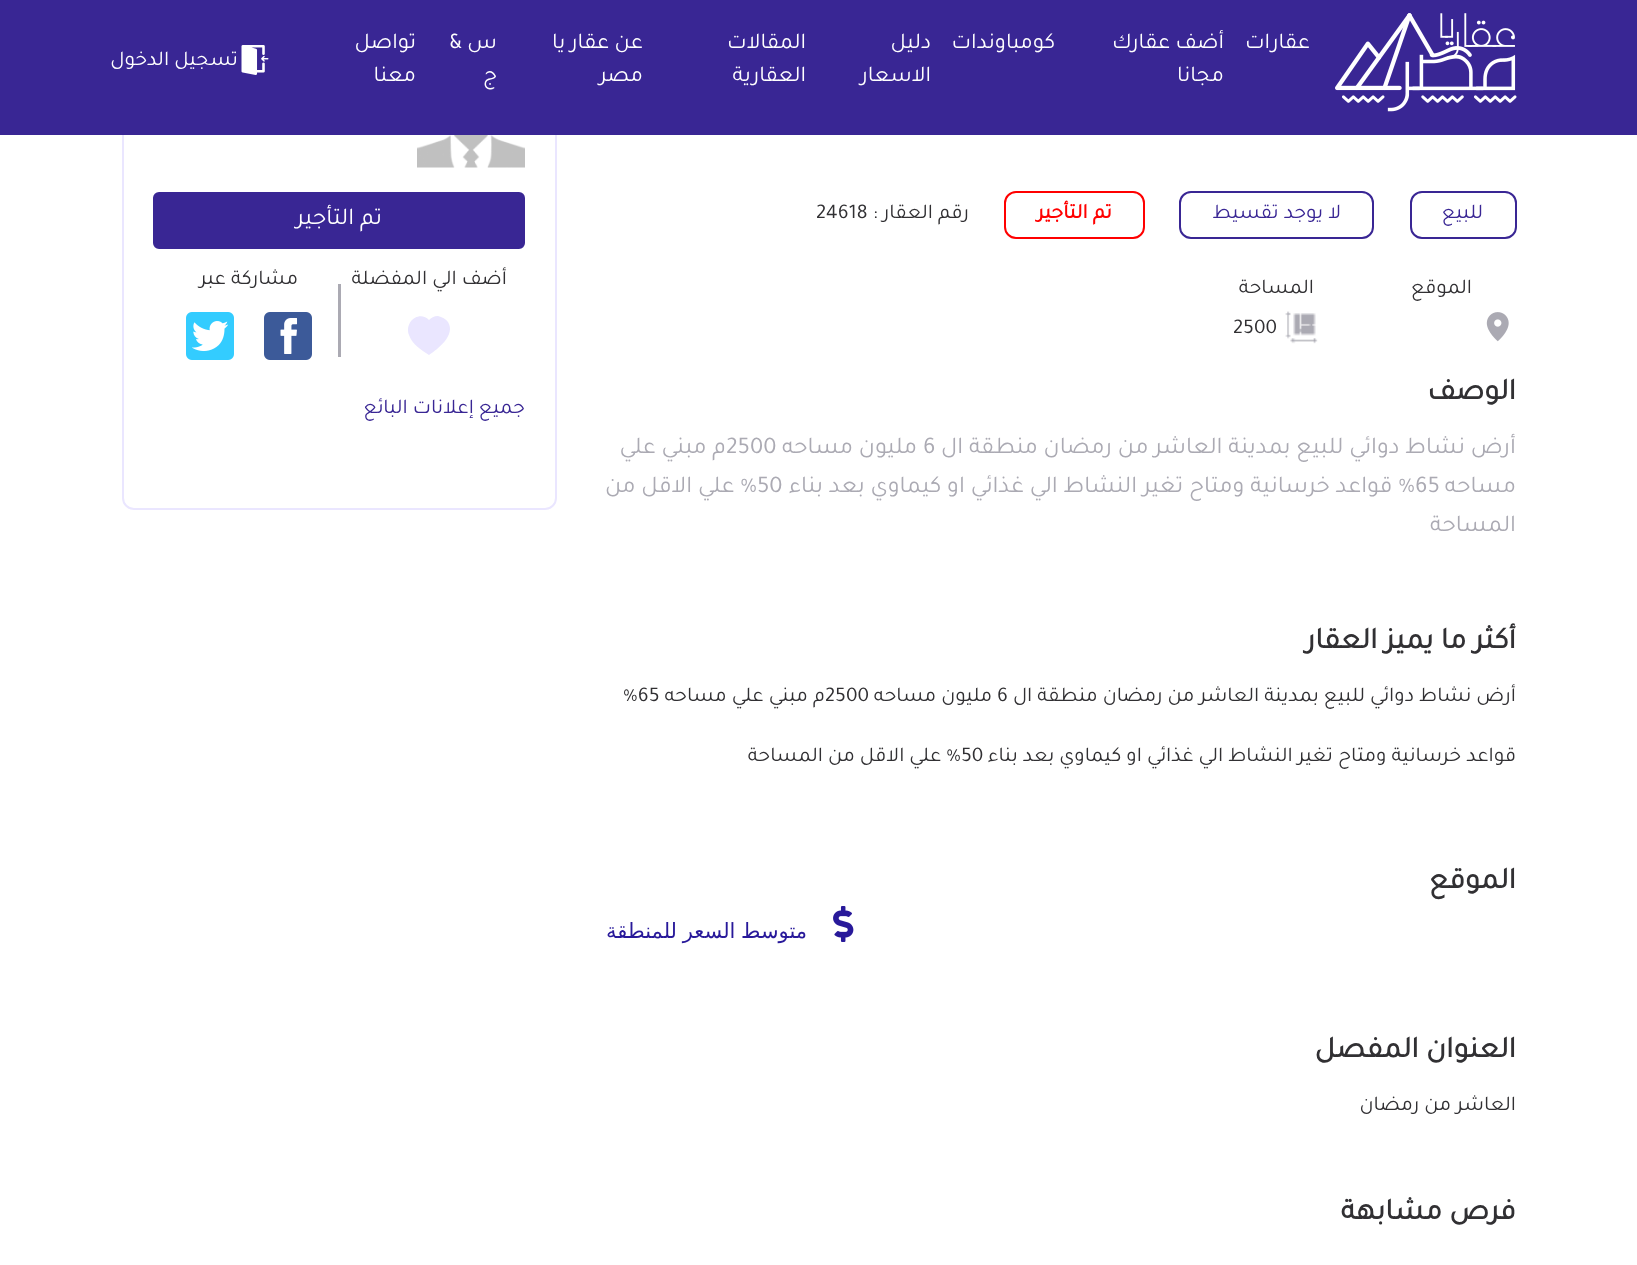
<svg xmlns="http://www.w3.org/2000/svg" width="1637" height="1265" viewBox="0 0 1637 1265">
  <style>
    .t1 { font: 22.5px Tajawal; direction: rtl; fill: #fff; }
    .t2 { font: 21px Tajawal; direction: rtl; fill: #fff; }
    .t3 { font: 21px Tajawal; direction: rtl; fill: #392694; }
    .t4 { font: bold 21px Tajawal; direction: rtl; fill: #f00; }
    .t5 { font: 21px Tajawal; direction: rtl; fill: #313033; }
    .t6 { font: 21px Tajawal; fill: #313033; }
    .t7 { font: bold 30px Tajawal; direction: rtl; fill: #313033; }
    .t8 { font: 24px Tajawal; direction: rtl; fill: #abaab3; }
    .t9 { font: 24px Tajawal; fill: #abaab3; }
    .t10 { font: 21px DejaVu Sans; direction: rtl; fill: #28199a; }
    .t11 { font: 24px Tajawal; direction: rtl; fill: #fff; }
  </style>
  <rect width="100%" height="100%" fill="#fff"/>
  <rect x="123" y="9" width="433" height="500" rx="11" fill="none" stroke="#eae6ff" stroke-width="2"/>
  <rect x="0" y="0" width="1637" height="135" fill="#392694"/>
  <image x="1335" y="13" width="182" height="99" href="images/1.png"/>
  <text x="1310" y="48" class="t1">عقارات</text>
  <text x="1224" y="48" class="t1">أضف عقارك</text>
  <text x="1224" y="81" class="t1">مجانا</text>
  <text x="1055" y="48" class="t1">كومباوندات</text>
  <text x="931" y="48" class="t1">دليل</text>
  <text x="931" y="81" class="t1">الاسعار</text>
  <text x="806" y="48" class="t1">المقالات</text>
  <text x="806" y="81" class="t1">العقارية</text>
  <text x="643" y="48" class="t1">عن عقار يا</text>
  <text x="643" y="81" class="t1">مصر</text>
  <text x="497" y="48" class="t1">س &amp;</text>
  <text x="497" y="81" class="t1">ج</text>
  <text x="416" y="48" class="t1">تواصل</text>
  <text x="416" y="81" class="t1">معنا</text>
  <image x="241" y="45" width="28" height="30" href="images/2.png"/>
  <text x="238" y="65" class="t2">تسجيل الدخول</text>
  <rect x="1411" y="192" width="105" height="46" rx="11" fill="none" stroke="#392694" stroke-width="2"/>
  <text x="1483" y="218" class="t3">للبيع</text>
  <rect x="1180" y="192" width="193" height="46" rx="11" fill="none" stroke="#392694" stroke-width="2"/>
  <text x="1341" y="218" class="t3">لا يوجد تقسيط</text>
  <rect x="1005" y="192" width="139" height="46" rx="11" fill="none" stroke="#f00" stroke-width="2"/>
  <text x="1112" y="218" class="t4">تم التأجير</text>
  <text x="969" y="218" class="t5">رقم العقار :</text>
  <text x="816" y="218" class="t6">24618</text>
  <text x="1472" y="293" class="t5">الموقع</text>
  <image x="1486" y="312" width="23" height="30" href="images/3.png"/>
  <text x="1314" y="293" class="t5">المساحة</text>
  <image x="1285" y="311" width="33" height="33" href="images/4.png"/>
  <text x="1233" y="333" class="t6">2500</text>
  <text x="1516" y="399" class="t7">الوصف</text>
  <text x="1516" y="453" class="t8">أرض نشاط دوائي للبيع بمدينة العاشر من رمضان منطقة ال</text>
  <text x="923" y="453" class="t9">6</text>
  <text x="917" y="453" class="t8">مليون مساحه</text>
  <text x="726" y="453" class="t9">2500</text>
  <text x="726" y="453" class="t8">م مبني علي</text>
  <text x="1516" y="492" class="t8">مساحه</text>
  <text x="1415" y="492" class="t9">65</text>
  <text x="1415" y="492" class="t8">% قواعد خرسانية ومتاح تغير النشاط الي غذائي او كيماوي بعد بناء</text>
  <text x="757" y="492" class="t9">50</text>
  <text x="757" y="492" class="t8">% علي الاقل من</text>
  <text x="1516" y="531" class="t8">المساحة</text>
  <text x="1516" y="648" class="t7">أكثر ما يميز العقار</text>
  <text x="1516" y="701" class="t5">أرض نشاط دوائي للبيع بمدينة العاشر من رمضان منطقة ال</text>
  <text x="997" y="701" class="t6">6</text>
  <text x="992" y="701" class="t5">مليون مساحه</text>
  <text x="825" y="701" class="t6">2500</text>
  <text x="825" y="701" class="t5">م مبني علي مساحه</text>
  <text x="623" y="701" class="t6">%65</text>
  <text x="1516" y="761" class="t5">قواعد خرسانية ومتاح تغير النشاط الي غذائي او كيماوي بعد بناء</text>
  <text x="961" y="761" class="t6">50</text>
  <text x="961" y="761" class="t5">% علي الاقل من المساحة</text>
  <text x="1516" y="888" class="t7">الموقع</text>
  <image x="833" y="906" width="21" height="36" href="images/5.png"/>
  <text x="807" y="938" word-spacing="-1" class="t10">متوسط السعر للمنطقة</text>
  <text x="1516" y="1057" class="t7">العنوان المفصل</text>
  <text x="1516" y="1110" class="t5">العاشر من رمضان</text>
  <image x="417" y="135" width="108" height="33" href="images/6.png"/>
  <rect x="154" y="193" width="370" height="55" rx="5" fill="#392694" stroke="#392694" stroke-width="2"/>
  <text x="382" y="224" class="t11">تم التأجير</text>
  <text x="507" y="284" class="t5">أضف الي المفضلة</text>
  <path d="M438 316C434 316 431 318 429 320C420 310 404 321 409 335C412 344 421 350 429 355C438 349 456 335 448 322C446 319 442 317 438 316Z" fill="#eae6ff"/>
  <text x="298" y="284" class="t5">مشاركة عبر</text>
  <image x="264" y="312" width="48" height="48" href="images/7.png"/>
  <image x="186" y="312" width="48" height="48" href="images/8.png"/>
  <rect x="338" y="284" width="3" height="73" fill="#abaab3"/>
  <text x="525" y="413" class="t3">جميع إعلانات البائع</text>
  <text x="1516" y="1219" class="t7">فرص مشابهة</text>
</svg>
